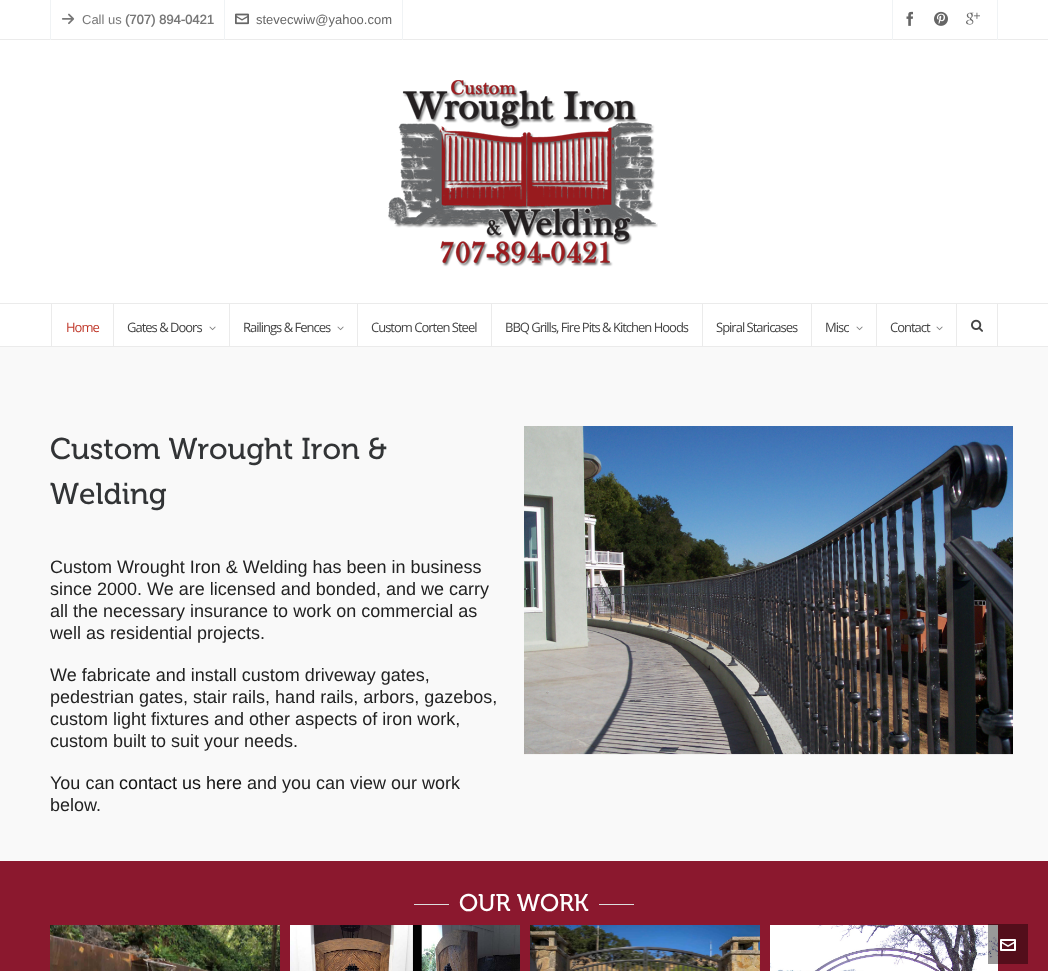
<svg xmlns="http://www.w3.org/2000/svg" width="1048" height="971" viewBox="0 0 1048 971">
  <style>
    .t1 { font: 13px Arimo; fill: #777; }
    .t2 { font: bold 13px Arimo; fill: #777; }
    .t3 { font: 13px Arimo; fill: #666; }
    .t4 { font: 13px Open Sans; letter-spacing: -1px; fill: #c0392b; }
    .t5 { font: 13px Open Sans; letter-spacing: -1px; fill: #444; }
    .t6 { font: 30px 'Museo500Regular'; fill: #323436; }
    .t7 { font: 18px Arimo; fill: #222; }
    .t8 { font: 18px Arimo; fill: #111; }
    .t9 { font: 24px 'Museo500Regular'; fill: #fff; }
  </style>
  <rect width="100%" height="100%" fill="#f9f9f9"/>
  <rect x="0" y="0" width="1048" height="39" fill="#fff"/>
  <rect x="0" y="39" width="1048" height="1" fill="#ebebeb"/>
  <rect x="224" y="0" width="1" height="40" fill="#f0f3f5"/>
  <rect x="50" y="0" width="1" height="40" fill="#f0f3f5"/>
  <image x="61" y="13" width="14" height="12" href="images/1.png"/>
  <text x="82" y="24" class="t1">Call us</text>
  <text x="125" y="24" class="t2">(707) 894-0421</text>
  <rect x="402" y="0" width="1" height="40" fill="#f0f3f5"/>
  <image x="235" y="13" width="14" height="12" href="images/2.png"/>
  <text x="256" y="24" class="t3">stevecwiw@yahoo.com</text>
  <rect x="997" y="0" width="1" height="40" fill="#f0f3f5"/>
  <rect x="892" y="0" width="1" height="40" fill="#f0f3f5"/>
  <image x="906" y="11" width="7" height="15" href="images/3.png"/>
  <image x="934" y="11" width="14" height="15" href="images/4.png"/>
  <image x="966" y="12" width="14" height="13" href="images/5.png"/>
  <rect x="0" y="40" width="1048" height="306" fill="#fff"/>
  <rect x="0" y="346" width="1048" height="1" fill="#ebebeb"/>
  <image x="388" y="80" width="270" height="187" href="images/6.png"/>
  <rect x="0" y="303" width="1048" height="1" fill="#ebebeb"/>
  <rect x="113" y="304" width="1" height="42" fill="#ebebeb"/>
  <rect x="51" y="304" width="1" height="42" fill="#ebebeb"/>
  <text x="66" y="332" class="t4">Home</text>
  <rect x="229" y="304" width="1" height="42" fill="#ebebeb"/>
  <text x="127" y="332" class="t5">Gates &amp; Doors</text>
  <image x="209" y="326" width="7" height="5" href="images/7.png"/>
  <rect x="357" y="304" width="1" height="42" fill="#ebebeb"/>
  <text x="243" y="332" class="t5">Railings &amp; Fences</text>
  <image x="337" y="326" width="7" height="5" href="images/7.png"/>
  <rect x="491" y="304" width="1" height="42" fill="#ebebeb"/>
  <text x="371" y="332" class="t5">Custom Corten Steel</text>
  <rect x="702" y="304" width="1" height="42" fill="#ebebeb"/>
  <text x="505" y="332" class="t5">BBQ Grills, Fire Pits &amp; Kitchen Hoods</text>
  <rect x="811" y="304" width="1" height="42" fill="#ebebeb"/>
  <text x="716" y="332" class="t5">Spiral Staricases</text>
  <rect x="876" y="304" width="1" height="42" fill="#ebebeb"/>
  <text x="825" y="332" class="t5">Misc</text>
  <image x="856" y="326" width="7" height="5" href="images/7.png"/>
  <rect x="956" y="304" width="1" height="42" fill="#ebebeb"/>
  <text x="890" y="332" class="t5">Contact</text>
  <image x="936" y="326" width="7" height="5" href="images/7.png"/>
  <rect x="997" y="304" width="1" height="42" fill="#ebebeb"/>
  <image x="971" y="319" width="12" height="13" href="images/8.png"/>
  <text x="50" y="459" class="t6">Custom Wrought Iron &amp;</text>
  <text x="50" y="504" class="t6">Welding</text>
  <text x="50" y="573" class="t7">Custom Wrought Iron &amp; Welding has been in business</text>
  <text x="50" y="595" class="t7">since 2000. We are licensed and bonded, and we carry</text>
  <text x="50" y="617" class="t7">all the necessary insurance to work on commercial as</text>
  <text x="50" y="639" class="t7">well as residential projects.</text>
  <text x="50" y="681" class="t7">We fabricate and install custom driveway gates,</text>
  <text x="50" y="703" class="t7">pedestrian gates, stair rails, hand rails, arbors, gazebos,</text>
  <text x="50" y="725" class="t7">custom light fixtures and other aspects of iron work,</text>
  <text x="50" y="747" class="t7">custom built to suit your needs.</text>
  <text x="50" y="789" class="t7">You can</text>
  <text x="119" y="789" class="t8">contact us here</text>
  <text x="247" y="789" class="t7">and you can view our work</text>
  <text x="50" y="811" class="t7">below.</text>
  <image x="524" y="426" width="489" height="329" href="images/9.png"/>
  <rect x="0" y="861" width="1048" height="110" fill="#8b182e"/>
  <rect x="414" y="904" width="35" height="1" fill="#ddd"/>
  <text x="459" y="911" class="t9">OUR WORK</text>
  <rect x="599" y="904" width="35" height="1" fill="#ddd"/>
  <image x="50" y="925" width="230" height="46" href="images/10.png"/>
  <image x="290" y="925" width="230" height="46" href="images/11.png"/>
  <image x="530" y="925" width="230" height="46" href="images/12.png"/>
  <image x="770" y="925" width="228" height="46" href="images/13.png"/>
  <rect x="988" y="924" width="40" height="40" fill="#00000066"/>
  <image x="1000" y="939" width="16" height="12" href="images/14.png"/>
</svg>
